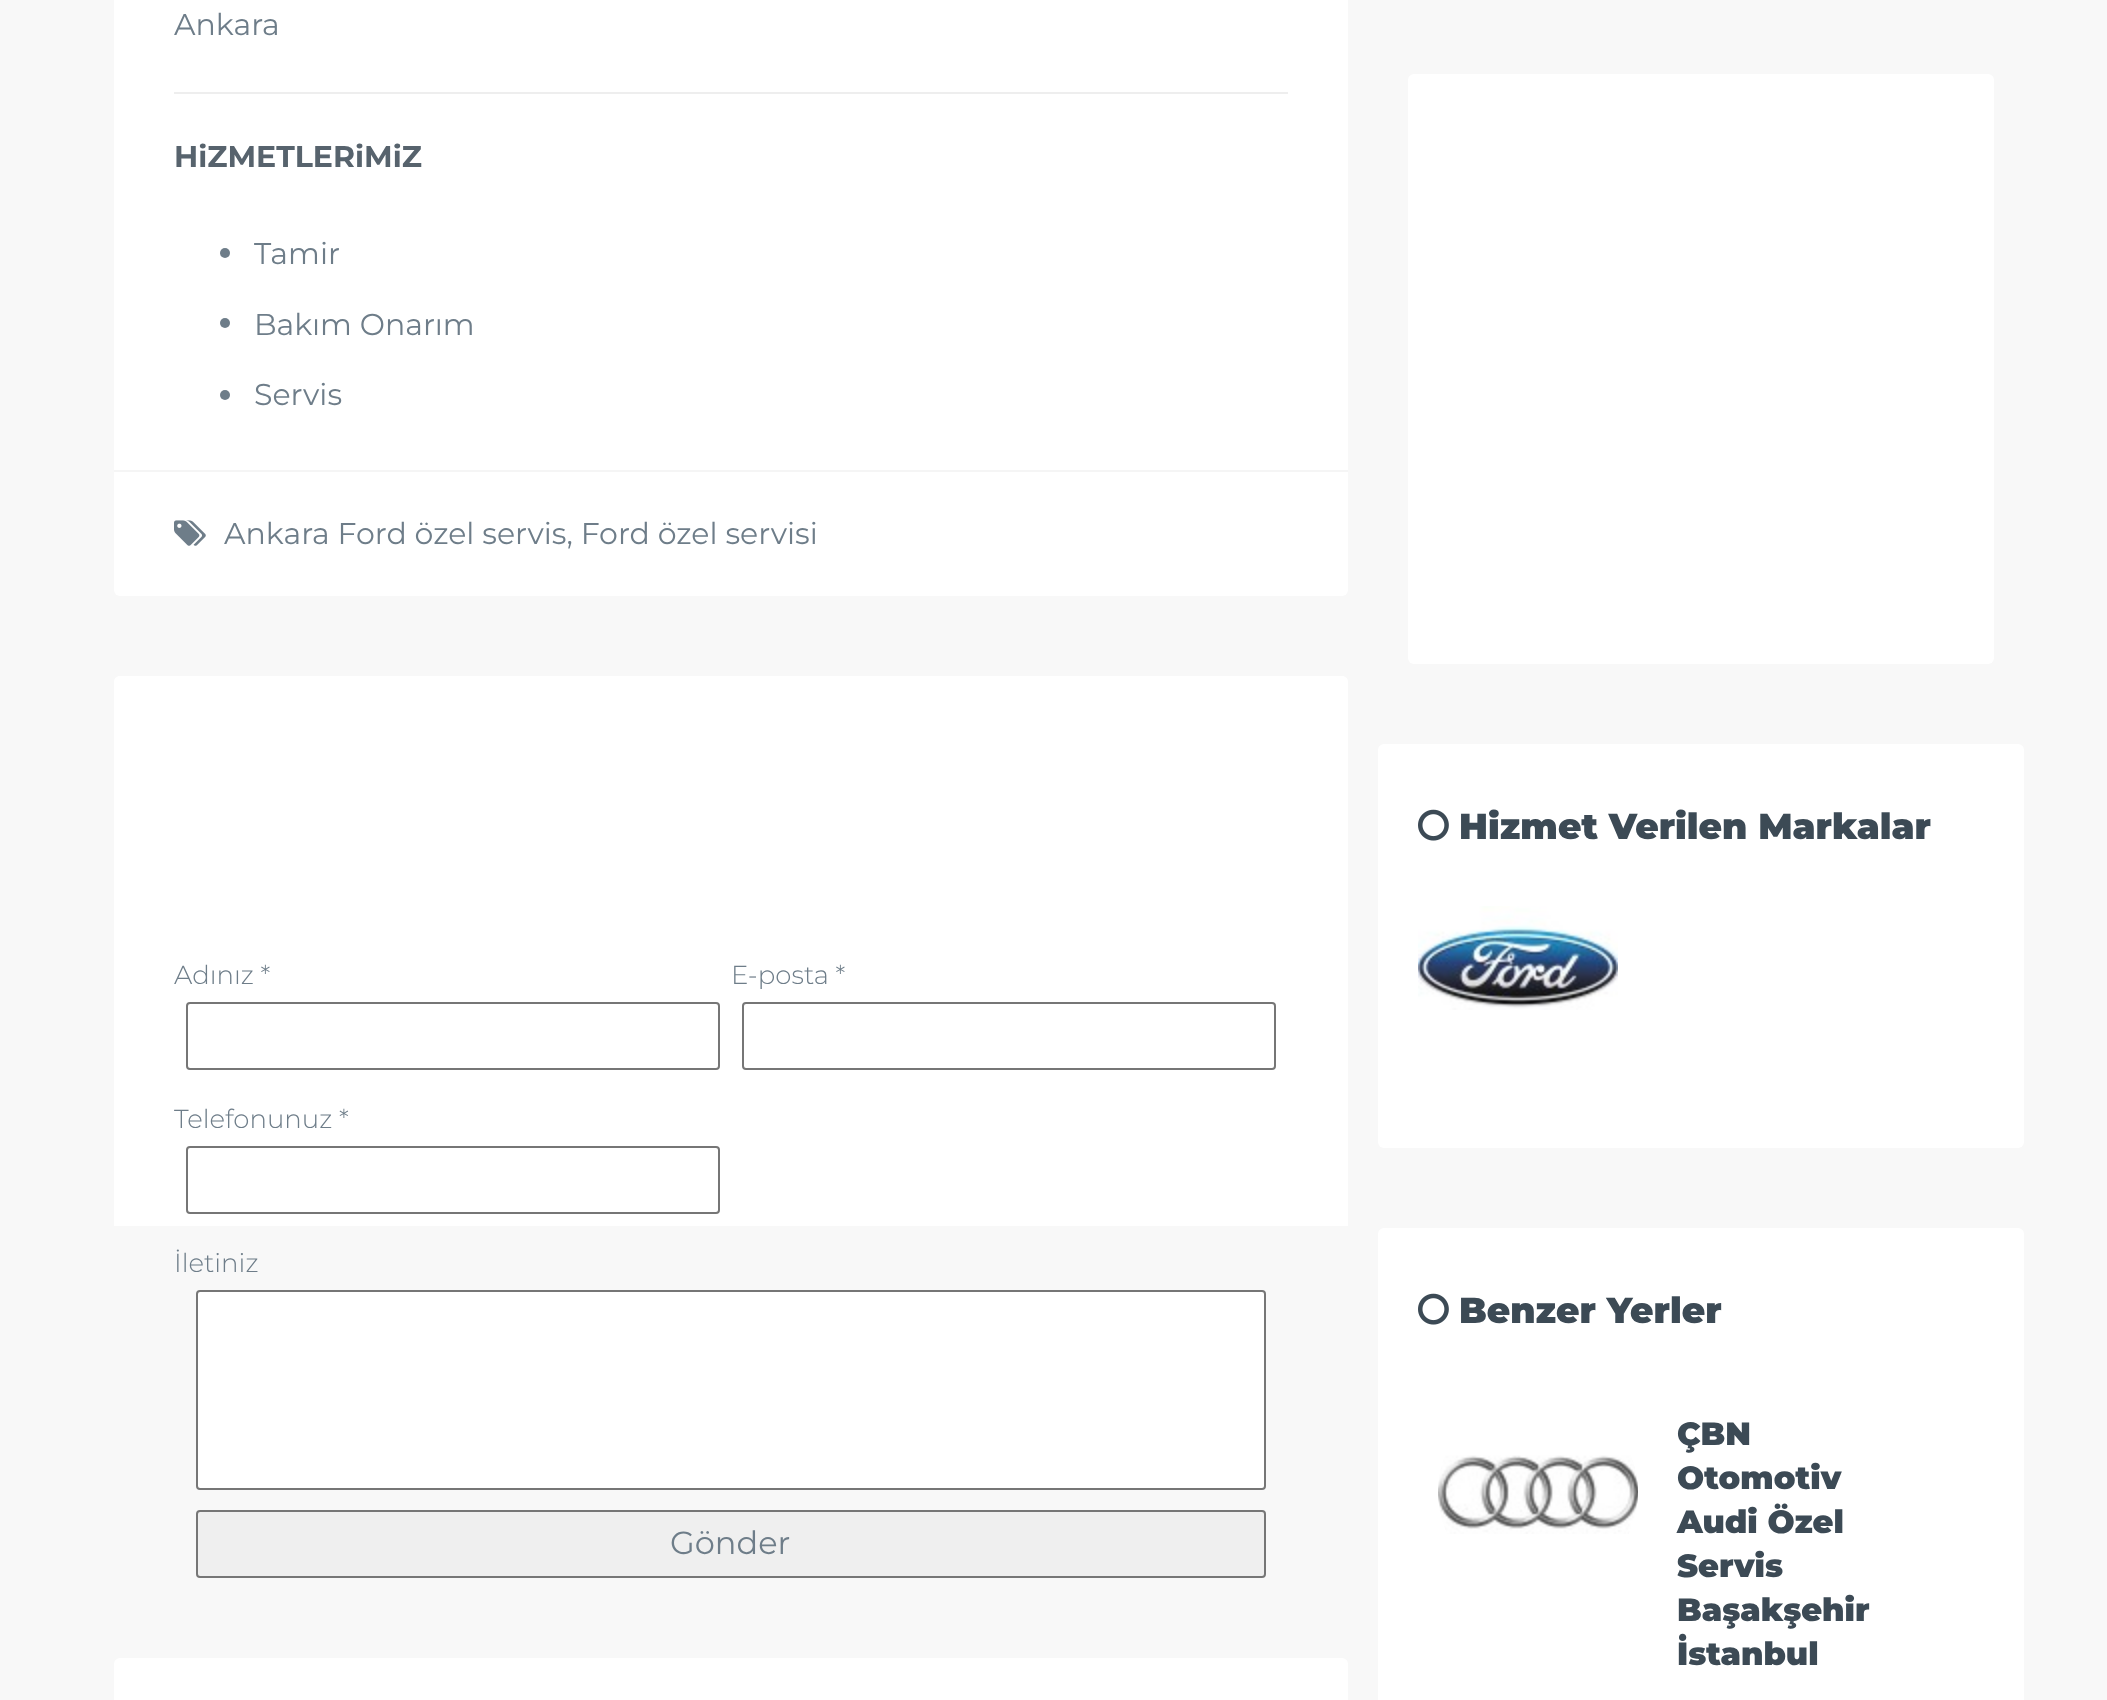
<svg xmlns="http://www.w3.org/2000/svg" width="2107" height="1700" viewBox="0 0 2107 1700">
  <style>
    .t1 { font: 30px Montserrat; fill: #6e7d89; }
    .t2 { font: bold 30px Montserrat; fill: #57636d; }
    .t3 { font: 300 26px Montserrat; fill: #6e7d89; }
    .t4 { font: 32px Montserrat; fill: #6e7d89; }
    .t5 { font: 900 36px Montserrat; fill: #3c4a55; }
    .t6 { font: 900 32px Montserrat; fill: #3c4a55; }
  </style>
  <rect width="100%" height="100%" fill="#f8f8f8"/>
  <rect x="114" y="-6" width="1234" height="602" rx="6" fill="#fff"/>
  <text x="174" y="35" class="t1">Ankara</text>
  <rect x="174" y="92" width="1114" height="2" fill="#eee"/>
  <text x="174" y="167" class="t2">HiZMETLERiMiZ</text>
  <circle cx="225" cy="253" r="5" fill="#6e7d89"/>
  <text x="254" y="264" class="t1">Tamir</text>
  <circle cx="225" cy="323" r="5" fill="#6e7d89"/>
  <text x="254" y="335" class="t1">Bakım Onarım</text>
  <circle cx="225" cy="395" r="5" fill="#6e7d89"/>
  <text x="254" y="405" class="t1">Servis</text>
  <rect x="114" y="470" width="1234" height="2" fill="#f5f5f5"/>
  <image x="174" y="520" width="32" height="26" href="images/1.png"/>
  <text x="224" y="544" class="t1">Ankara Ford özel servis, Ford özel servisi</text>
  <path d="M120 676H1342C1345.5 676 1348 678.5 1348 682V1226H114V682C114 678.5 116.5 676 120 676Z" fill="#fff"/>
  <text x="174" y="984" class="t3">Adınız *</text>
  <rect x="187" y="1003" width="532" height="66" rx="3" fill="none" stroke="#767676" stroke-width="2"/>
  <text x="731" y="984" class="t3">E-posta *</text>
  <rect x="743" y="1003" width="532" height="66" rx="3" fill="none" stroke="#767676" stroke-width="2"/>
  <text x="174" y="1128" class="t3">Telefonunuz *</text>
  <rect x="187" y="1147" width="532" height="66" rx="3" fill="none" stroke="#767676" stroke-width="2"/>
  <text x="174" y="1272" class="t3">İletiniz</text>
  <rect x="197" y="1291" width="1068" height="198" rx="3" fill="#fff" stroke="#767676" stroke-width="2"/>
  <rect x="197" y="1511" width="1068" height="66" rx="3" fill="#efefef" stroke="#767676" stroke-width="2"/>
  <text x="670" y="1554" class="t4">Gönder</text>
  <rect x="114" y="1658" width="1234" height="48" rx="6" fill="#fff"/>
  <rect x="1408" y="74" width="586" height="590" rx="6" fill="#fff"/>
  <rect x="1378" y="744" width="646" height="404" rx="6" fill="#fff"/>
  <image x="1418" y="809" width="31" height="32" href="images/2.png"/>
  <text x="1459" y="839" class="t5">Hizmet Verilen Markalar</text>
  <image x="1418" y="906" width="200" height="104" href="images/3.png"/>
  <rect x="1378" y="1228" width="646" height="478" rx="6" fill="#fff"/>
  <image x="1418" y="1293" width="31" height="32" href="images/2.png"/>
  <text x="1459" y="1323" class="t5">Benzer Yerler</text>
  <image x="1438" y="1455" width="200" height="79" href="images/4.png"/>
  <text x="1677" y="1445" class="t6">ÇBN</text>
  <text x="1677" y="1489" class="t6">Otomotiv</text>
  <text x="1677" y="1533" class="t6">Audi Özel</text>
  <text x="1677" y="1577" class="t6">Servis</text>
  <text x="1677" y="1621" class="t6">Başakşehir</text>
  <text x="1677" y="1665" class="t6">İstanbul</text>
</svg>
